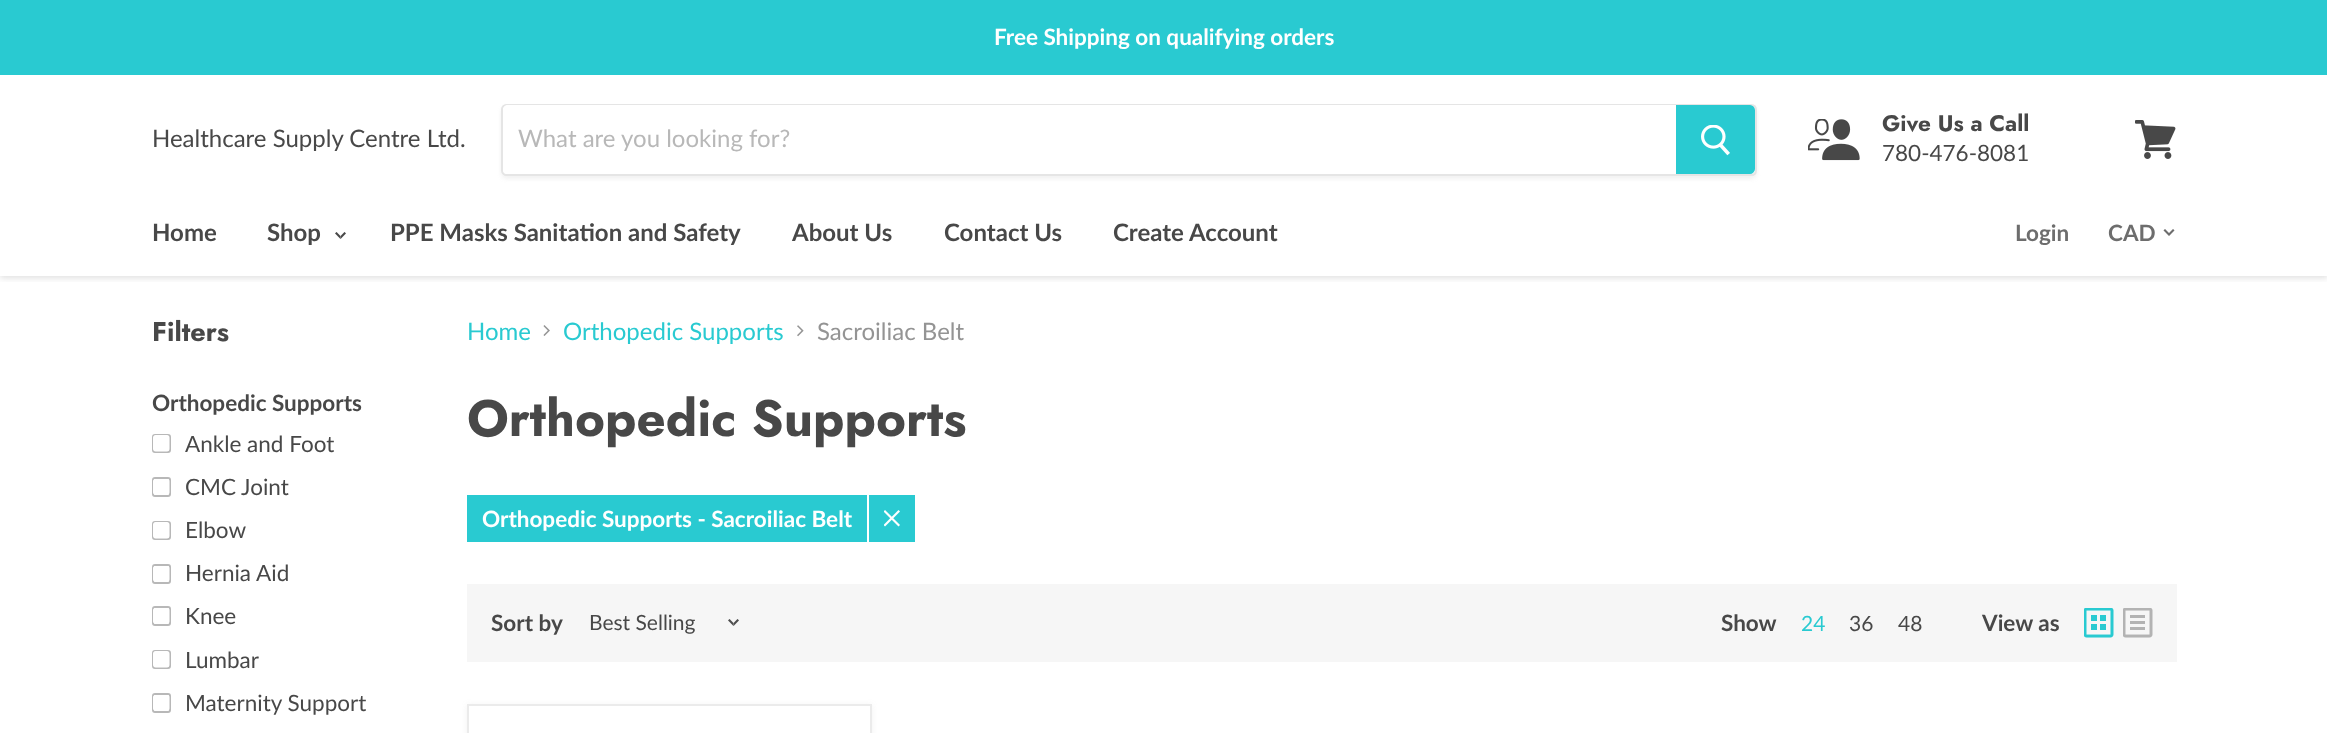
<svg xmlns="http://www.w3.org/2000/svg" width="2327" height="733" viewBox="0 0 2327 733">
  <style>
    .t1 { font: bold 22.5px Lato; fill: #fff; }
    .t2 { font: 24px Lato; fill: #484848; }
    .t3 { font: 24px Lato; fill: #b8b8b8; }
    .t4 { font: bold 22.5px Jost; fill: #484848; }
    .t5 { font: 22.5px Lato; fill: #484848; }
    .t6 { font: bold 24px Lato; fill: #484848; }
    .t7 { font: bold 22.5px Lato; fill: #6d6d6d; }
    .t8 { font: bold 27px Jost; fill: #484848; }
    .t9 { font: bold 22.5px Lato; fill: #484848; }
    .t10 { font: 24px Lato; fill: #29cad1; }
    .t11 { font: 24px Lato; fill: #949494; }
    .t12 { font: bold 51px Jost; fill: #484848; }
    .t13 { font: 21px Lato; fill: #484848; }
    .t14 { font: 21px Lato; fill: #29cad1; }
  </style>
  <defs>
    <clipPath id="clip1"><rect x="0" y="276" width="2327" height="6"/></clipPath>
    <clipPath id="clip2"><path d="M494 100H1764V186H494ZM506 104H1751C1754.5 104 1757 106.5 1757 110V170C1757 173.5 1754.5 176 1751 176H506C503 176 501 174 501 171V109C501 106 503 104 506 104Z" clip-rule="evenodd"/></clipPath>
  </defs>
  <rect width="100%" height="100%" fill="#fff"/>
  <g clip-path="url(#clip1)">
    <rect x="0" y="2" width="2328" height="276" fill="#7f7f7f40" filter="blur(3px)"/>
  </g>
  <rect x="0" y="0" width="2327" height="75" fill="#29cad1"/>
  <text x="994" y="45" class="t1">Free Shipping on qualifying orders</text>
  <text x="152" y="147" class="t2">Healthcare Supply Centre Ltd.</text>
  <g clip-path="url(#clip2)">
    <rect x="501" y="107" width="1256" height="72" rx="6" fill="#7f7f7f1c" filter="blur(2px)"/>
  </g>
  <path d="M506 105H1751C1754 105 1756 107 1756 110V170C1756 173 1754 175 1751 175H506C504 175 502 173 502 171V109C502 107 504 105 506 105Z" fill="none" stroke="#7f7f7f33" stroke-width="2"/>
  <path d="M508 105H1676V174H508C505 174 503 172 503 169V110C503 107 505 105 508 105Z" fill="#fff"/>
  <text x="518" y="147" class="t3">What are you looking for?</text>
  <path d="M1677 106H1750C1752 106 1754 108 1754 110V169C1754 171 1752 173 1750 173H1677Z" fill="#29cad1" stroke="#29cad1" stroke-width="2"/>
  <image x="1701" y="125" width="29" height="31" href="images/1.png"/>
  <image x="1808" y="119" width="52" height="42" href="images/2.png"/>
  <text x="1882" y="131" class="t4">Give Us a Call</text>
  <text x="1882" y="161" class="t5">780-476-8081</text>
  <image x="2135" y="120" width="41" height="39" href="images/3.png"/>
  <text x="152" y="241" class="t6">Home</text>
  <text x="267" y="241" class="t6">Shop</text>
  <image x="335" y="232" width="11" height="7" href="images/4.png"/>
  <text x="390" y="241" class="t6">PPE Masks Sanitation and Safety</text>
  <text x="792" y="241" class="t6">About Us</text>
  <text x="944" y="241" class="t6">Contact Us</text>
  <text x="1113" y="241" class="t6">Create Account</text>
  <text x="2015" y="241" class="t7">Login</text>
  <text x="2108" y="241" class="t7">CAD</text>
  <image x="2163" y="229" width="12" height="7" href="images/5.png"/>
  <text x="152" y="341" class="t8">Filters</text>
  <text x="152" y="411" class="t9">Orthopedic Supports</text>
  <rect x="153" y="435" width="17" height="17" rx="2" fill="none" stroke="#b8b8b8" stroke-width="2"/>
  <image x="153" y="435" width="17" height="17" href="images/6.png"/>
  <text x="185" y="452" class="t5">Ankle and Foot</text>
  <rect x="153" y="478" width="17" height="18" rx="2" fill="none" stroke="#b8b8b8" stroke-width="2"/>
  <image x="153" y="479" width="17" height="16" href="images/7.png"/>
  <text x="185" y="495" class="t5">CMC Joint</text>
  <rect x="153" y="522" width="17" height="17" rx="2" fill="none" stroke="#b8b8b8" stroke-width="2"/>
  <image x="153" y="522" width="17" height="17" href="images/6.png"/>
  <text x="185" y="538" class="t5">Elbow</text>
  <rect x="153" y="565" width="17" height="18" rx="2" fill="none" stroke="#b8b8b8" stroke-width="2"/>
  <image x="153" y="566" width="17" height="16" href="images/7.png"/>
  <text x="185" y="581" class="t5">Hernia Aid</text>
  <rect x="153" y="607" width="17" height="18" rx="2" fill="none" stroke="#b8b8b8" stroke-width="2"/>
  <image x="153" y="608" width="17" height="16" href="images/7.png"/>
  <text x="185" y="624" class="t5">Knee</text>
  <rect x="153" y="651" width="17" height="17" rx="2" fill="none" stroke="#b8b8b8" stroke-width="2"/>
  <image x="153" y="651" width="17" height="17" href="images/6.png"/>
  <text x="185" y="668" class="t5">Lumbar</text>
  <rect x="153" y="694" width="17" height="18" rx="2" fill="none" stroke="#b8b8b8" stroke-width="2"/>
  <image x="153" y="695" width="17" height="16" href="images/7.png"/>
  <text x="185" y="711" class="t5">Maternity Support</text>
  <text x="467" y="340" class="t10">Home</text>
  <image x="543" y="325" width="7" height="11" href="images/8.png"/>
  <text x="563" y="340" class="t10">Orthopedic Supports</text>
  <image x="797" y="325" width="7" height="12" href="images/9.png"/>
  <text x="817" y="340" class="t11">Sacroiliac Belt</text>
  <text x="467" y="436" class="t12">Orthopedic Supports</text>
  <rect x="467" y="495" width="448" height="47" fill="#29cad1"/>
  <rect x="867" y="495" width="2" height="47" fill="#fff"/>
  <text x="482" y="527" class="t1">Orthopedic Supports - Sacroiliac Belt</text>
  <image x="884" y="510" width="16" height="17" href="images/10.png"/>
  <rect x="467" y="584" width="1710" height="78" fill="#f6f6f6"/>
  <text x="491" y="631" class="t9">Sort by</text>
  <text x="589" y="630" class="t13">Best Selling</text>
  <image x="728" y="619" width="11" height="7" href="images/11.png"/>
  <text x="1721" y="631" class="t9">Show</text>
  <text x="1801" y="631" class="t14">24</text>
  <text x="1849" y="631" class="t13">36</text>
  <text x="1898" y="631" class="t13">48</text>
  <text x="1982" y="631" class="t9">View as</text>
  <image x="2084" y="608" width="30" height="30" href="images/12.png"/>
  <image x="2123" y="608" width="30" height="30" href="images/13.png"/>
  <rect x="467" y="705" width="405" height="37" fill="#7f7f7f1c" filter="blur(3px)"/>
  <rect x="468" y="705" width="403" height="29" fill="#fff" stroke="#ebebeb" stroke-width="2"/>
</svg>
